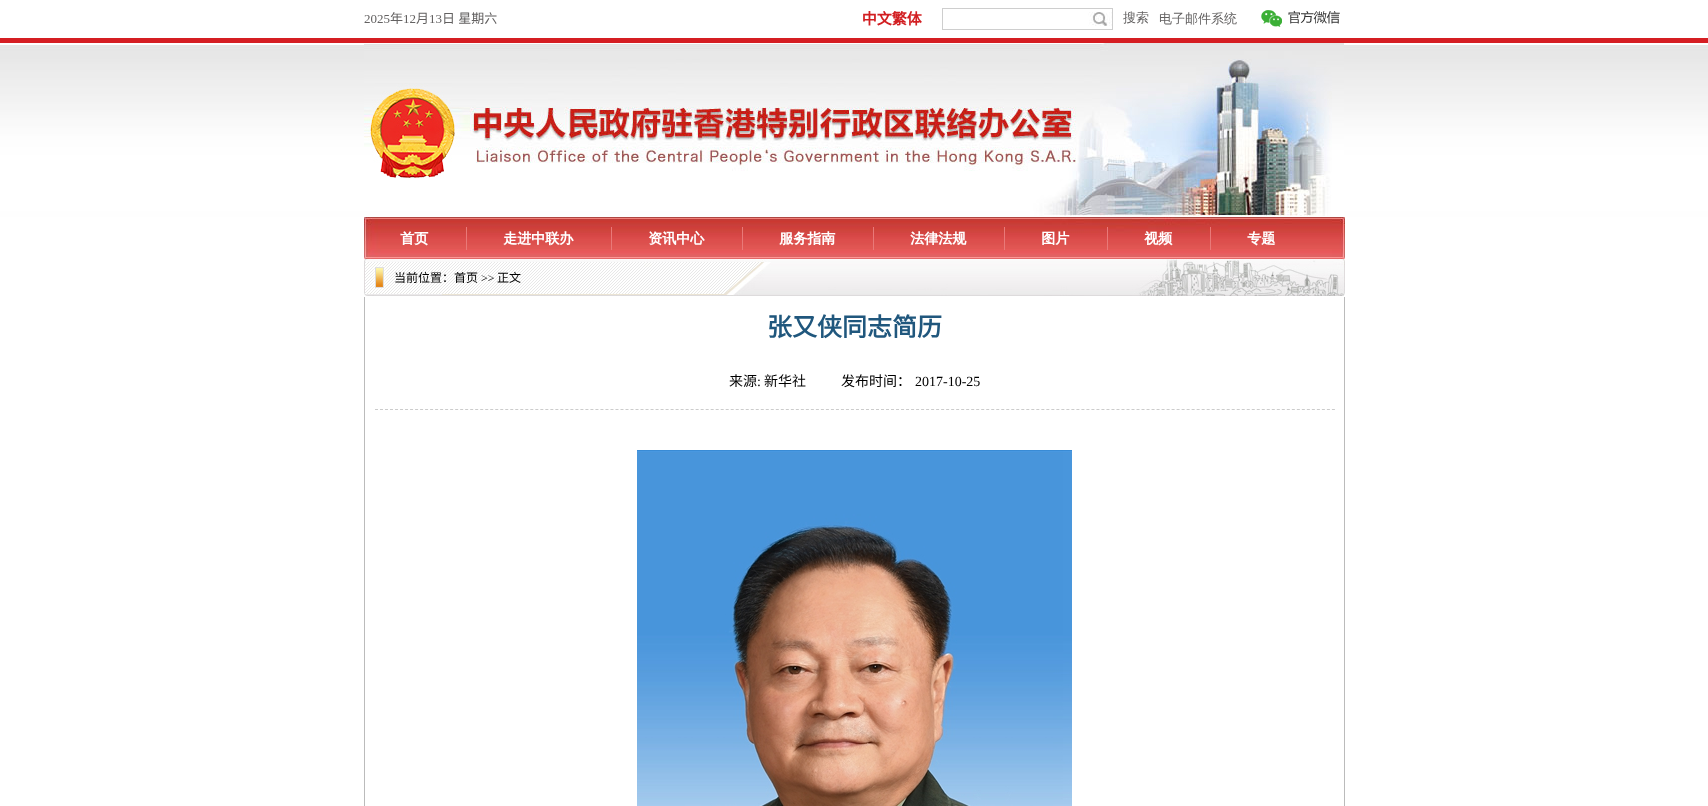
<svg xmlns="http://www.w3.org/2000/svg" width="1708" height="806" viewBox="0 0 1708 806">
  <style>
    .t1 { font: 12px Noto Sans CJK SC; fill: #000; }
    .t2 { font: 12px Liberation Serif; fill: #000; }
    .t3 { font: bold 25px Noto Sans CJK SC; fill: #20577d; }
    .t4 { font: 14px Noto Sans CJK SC; fill: #000; }
    .t5 { font: 14px Liberation Serif; fill: #000; }
  </style>
  <rect width="100%" height="100%" fill="#fff"/>
  <image x="0" y="8" width="1708" height="251" href="images/1.png"/>
  <image x="364" y="259" width="981" height="37" href="images/2.png"/>
  <text x="394" y="282" class="t1">当前位置：首页</text>
  <text x="481" y="282" class="t2">&gt;&gt;</text>
  <text x="497" y="282" class="t1">正文</text>
  <rect x="1344" y="297" width="1" height="509" fill="#bbb"/>
  <rect x="364" y="297" width="1" height="509" fill="#bbb"/>
  <text x="767" y="336" class="t3">张又侠同志简历</text>
  <path d="M375 409.5H1335" fill="none" stroke="#ccc" stroke-dasharray="3 2.01"/>
  <text x="729" y="386" class="t4">来源</text>
  <text x="757" y="386" class="t5">:</text>
  <text x="764" y="386" class="t4">新华社</text>
  <text x="841" y="386" class="t4">发布时间：</text>
  <text x="915" y="386" class="t5">2017-10-25</text>
  <image x="637" y="450" width="435" height="356" href="images/3.png"/>
</svg>
